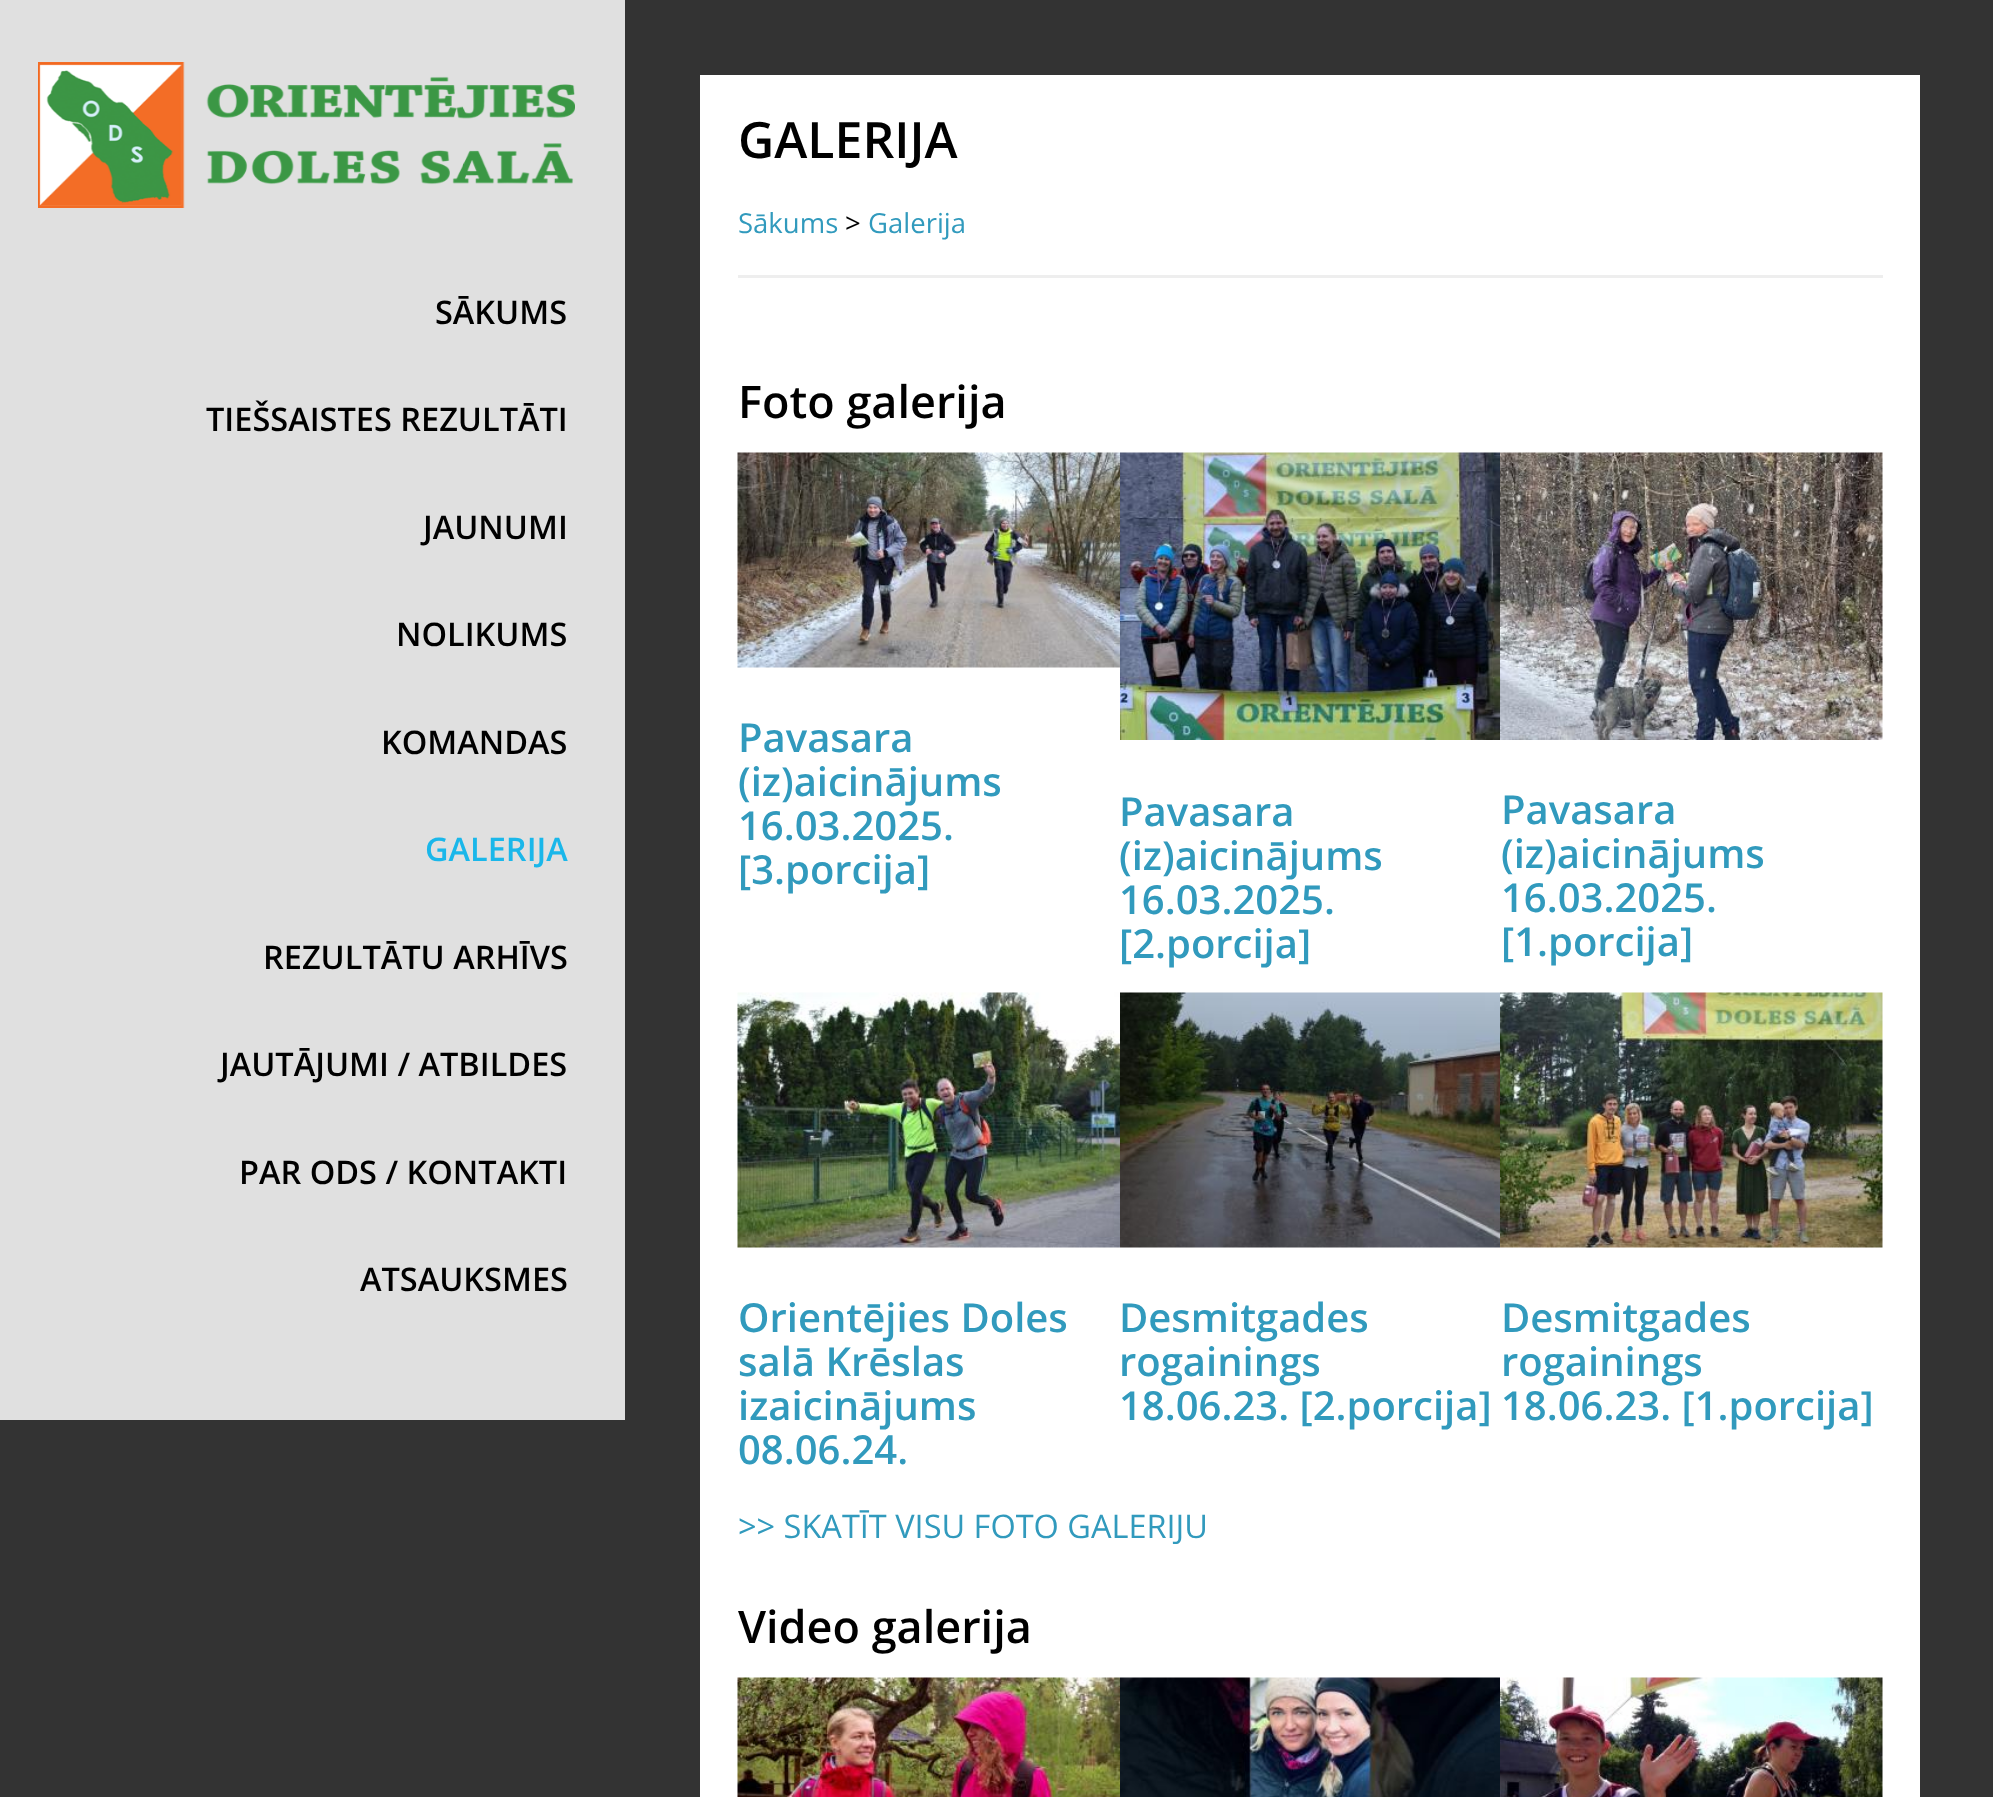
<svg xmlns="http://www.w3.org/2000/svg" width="1993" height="1797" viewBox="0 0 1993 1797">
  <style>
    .t1 { font: 600 32.5px Open Sans; fill: #000; }
    .t2 { font: 600 32.5px Open Sans; fill: #1ab7ea; }
    .t3 { font: 600 50px Open Sans; fill: #000; }
    .t4 { font: 27.5px Open Sans; fill: #319abd; }
    .t5 { font: 27.5px Open Sans; fill: #000; }
    .t6 { font: 600 45px Open Sans; fill: #000; }
    .t7 { font: 600 40px Open Sans; fill: #319abd; }
    .t8 { font: 32.5px Open Sans; fill: #319abd; }
  </style>
  <rect width="100%" height="100%" fill="#333"/>
  <rect x="0" y="0" width="625" height="1420" fill="#e0e0e0"/>
  <image x="38" y="62" width="537" height="146" href="images/1.png"/>
  <text x="435" y="324" class="t1">SĀKUMS</text>
  <text x="206" y="431" class="t1">TIEŠSAISTES REZULTĀTI</text>
  <text x="423" y="539" class="t1">JAUNUMI</text>
  <text x="396" y="646" class="t1">NOLIKUMS</text>
  <text x="381" y="754" class="t1">KOMANDAS</text>
  <text x="425" y="861" class="t2">GALERIJA</text>
  <text x="263" y="969" class="t1">REZULTĀTU ARHĪVS</text>
  <text x="220" y="1076" class="t1">JAUTĀJUMI / ATBILDES</text>
  <text x="239" y="1184" class="t1">PAR ODS / KONTAKTI</text>
  <text x="360" y="1291" class="t1">ATSAUKSMES</text>
  <rect x="700" y="75" width="1220" height="1722" fill="#fff"/>
  <text x="738" y="158" class="t3">GALERIJA</text>
  <rect x="738" y="275" width="1145" height="3" fill="#eee"/>
  <text x="738" y="233" class="t4">Sākums</text>
  <text x="845" y="233" class="t5">&gt;</text>
  <text x="868" y="233" class="t4">Galerija</text>
  <text x="738" y="418" class="t6">Foto galerija</text>
  <image x="737" y="452" width="383" height="216" href="images/2.png"/>
  <text x="738" y="752" class="t7">Pavasara</text>
  <text x="738" y="796" class="t7">(iz)aicinājums</text>
  <text x="738" y="840" class="t7">16.03.2025.</text>
  <text x="738" y="884" class="t7">[3.porcija]</text>
  <image x="1120" y="452" width="380" height="288" href="images/3.png"/>
  <text x="1119" y="826" class="t7">Pavasara</text>
  <text x="1119" y="870" class="t7">(iz)aicinājums</text>
  <text x="1119" y="914" class="t7">16.03.2025.</text>
  <text x="1119" y="958" class="t7">[2.porcija]</text>
  <image x="1500" y="452" width="383" height="288" href="images/4.png"/>
  <text x="1501" y="824" class="t7">Pavasara</text>
  <text x="1501" y="868" class="t7">(iz)aicinājums</text>
  <text x="1501" y="912" class="t7">16.03.2025.</text>
  <text x="1501" y="956" class="t7">[1.porcija]</text>
  <image x="737" y="992" width="383" height="256" href="images/5.png"/>
  <text x="738" y="1332" class="t7">Orientējies Doles</text>
  <text x="738" y="1376" class="t7">salā Krēslas</text>
  <text x="738" y="1420" class="t7">izaicinājums</text>
  <text x="738" y="1464" class="t7">08.06.24.</text>
  <image x="1120" y="992" width="380" height="256" href="images/6.png"/>
  <text x="1119" y="1332" class="t7">Desmitgades</text>
  <text x="1119" y="1376" class="t7">rogainings</text>
  <text x="1119" y="1420" class="t7">18.06.23. [2.porcija]</text>
  <image x="1500" y="992" width="383" height="256" href="images/7.png"/>
  <text x="1501" y="1332" class="t7">Desmitgades</text>
  <text x="1501" y="1376" class="t7">rogainings</text>
  <text x="1501" y="1420" class="t7">18.06.23. [1.porcija]</text>
  <text x="738" y="1538" class="t8">&gt;&gt; SKATĪT VISU FOTO GALERIJU</text>
  <text x="738" y="1643" class="t6">Video galerija</text>
  <image x="737" y="1677" width="383" height="120" href="images/8.png"/>
  <image x="1120" y="1677" width="380" height="120" href="images/9.png"/>
  <image x="1500" y="1677" width="383" height="120" href="images/10.png"/>
</svg>
